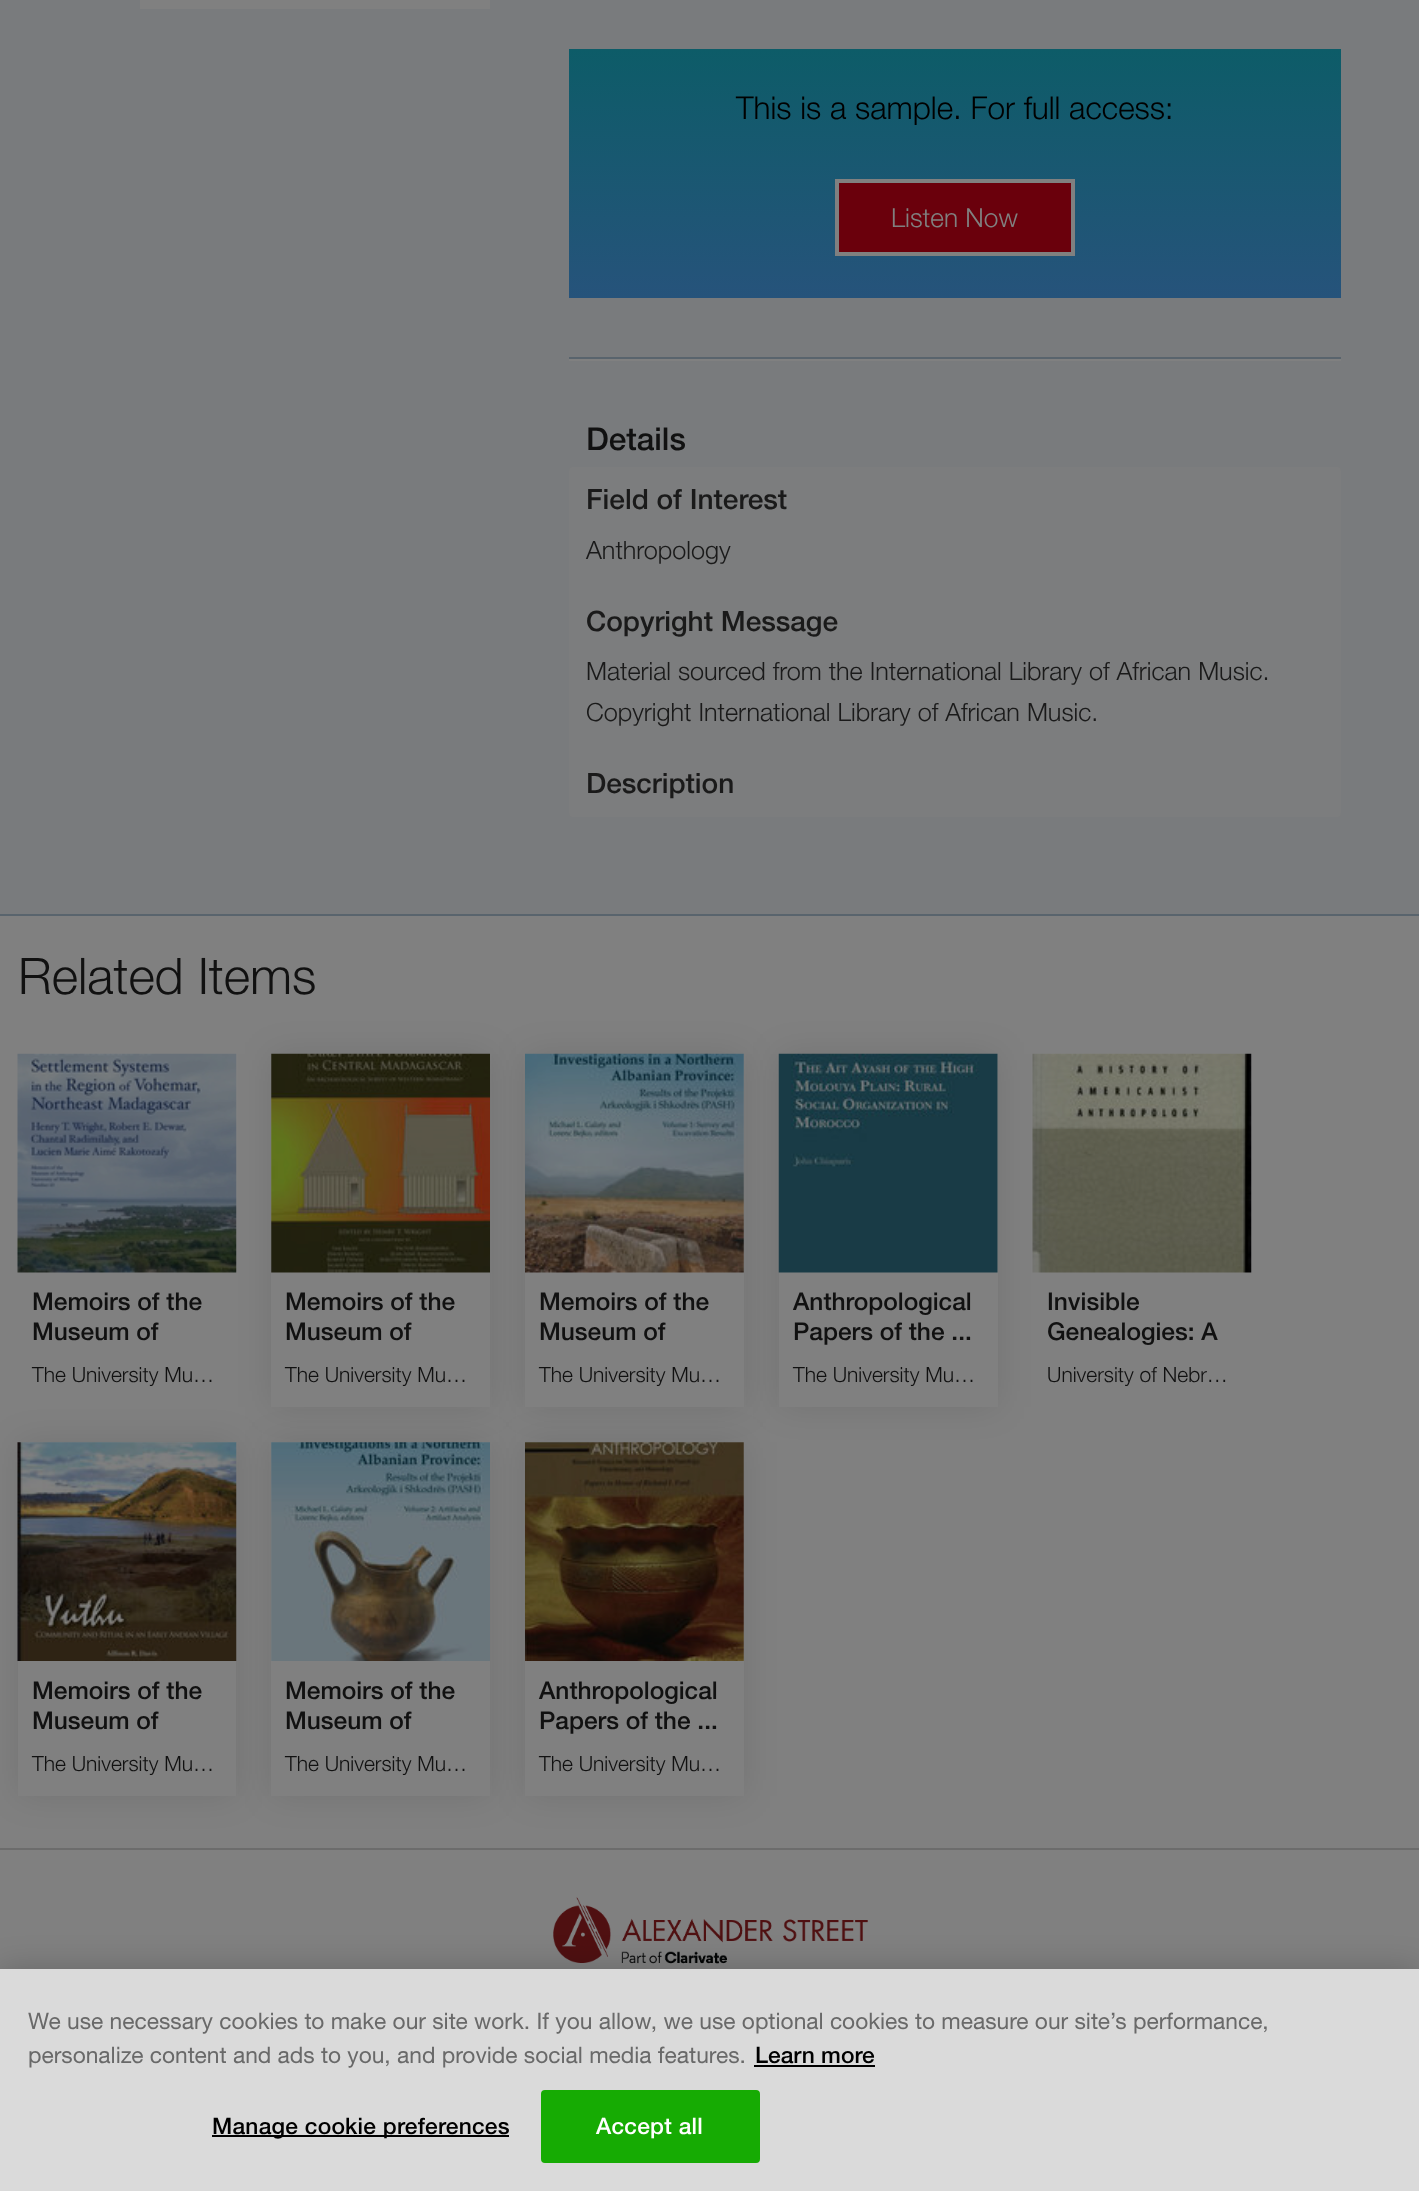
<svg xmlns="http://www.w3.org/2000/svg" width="1419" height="2191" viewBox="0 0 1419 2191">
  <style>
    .t1 { font: 300 31.5px 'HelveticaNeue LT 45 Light'; fill: #000; }
    .t2 { font: 300 26.25px 'HelveticaNeue LT 45 Light'; fill: #808080; }
    .t3 { font: 500 31.5px Helvetica Neue; fill: #111; }
    .t4 { font: 500 28px Helvetica Neue; fill: #1a1a1a; }
    .t5 { font: 300 25.2px 'HelveticaNeue LT 45 Light'; fill: #1a1a1a; }
    .t6 { font: 300 50.5px 'HelveticaNeue LT 45 Light'; fill: #111; }
    .t7 { font: 500 24.5px Helvetica Neue; fill: #111; }
    .t8 { font: 300 21px 'HelveticaNeue LT 45 Light'; fill: #111; }
    .t9 { font: 22.75px 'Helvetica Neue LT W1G'; fill: #696969; }
    .t10 { font: 500 22.75px Helvetica Neue; fill: #000; }
    .t11 { font: 500 22.75px Helvetica Neue; letter-spacing: 0.25px; fill: #000; }
    .t12 { font: 500 22.75px Helvetica Neue; letter-spacing: 0.25px; fill: #fff; }
  </style>
  <defs>
    <linearGradient id="g1" gradientUnits="userSpaceOnUse" x1="955" y1="298" x2="955" y2="49"><stop offset="0" stop-color="#26537b"/><stop offset="1" stop-color="#0d5c68"/></linearGradient>
  </defs>
  <rect width="100%" height="100%" fill="#808080"/>
  <rect x="0" y="0" width="1419" height="914" fill="#797b7d"/>
  <rect x="0" y="914" width="1419" height="2" fill="#59646d"/>
  <rect x="140" y="0" width="350" height="9" fill="#808080"/>
  <rect x="569" y="357" width="772" height="2" fill="#59646d"/>
  <rect x="569" y="49" width="772" height="249" fill="url(#g1)"/>
  <text x="736" y="119" class="t1">This is a sample. For full access:</text>
  <rect x="837" y="181" width="236" height="73" fill="#6a000c" stroke="#808080" stroke-width="4"/>
  <text x="891" y="227" class="t2">Listen Now</text>
  <rect x="569" y="359" width="772" height="2" fill="#808080"/>
  <text x="586" y="450" class="t3">Details</text>
  <rect x="569" y="467" width="772" height="350" rx="4" fill="#7c7d7e"/>
  <text x="586" y="509" class="t4">Field of Interest</text>
  <text x="586" y="559" class="t5">Anthropology</text>
  <text x="586" y="631" class="t4">Copyright Message</text>
  <text x="586" y="680" class="t5">Material sourced from the International Library of African Music.</text>
  <text x="586" y="721" class="t5">Copyright International Library of African Music.</text>
  <text x="586" y="793" class="t4">Description</text>
  <text x="18" y="994" class="t6">Related Items</text>
  <image x="17" y="1053" width="220" height="220" href="images/1.png"/>
  <text x="32" y="1310" class="t7">Memoirs of the</text>
  <text x="32" y="1340" class="t7">Museum of</text>
  <text x="32" y="1382" class="t8">The University Mu…</text>
  <rect x="271" y="1054" width="219" height="353" fill="#0000001a" filter="blur(17.5px)"/>
  <rect x="271" y="1054" width="219" height="353" fill="#808080"/>
  <image x="271" y="1053" width="219" height="220" href="images/2.png"/>
  <text x="285" y="1310" class="t7">Memoirs of the</text>
  <text x="285" y="1340" class="t7">Museum of</text>
  <text x="285" y="1382" class="t8">The University Mu…</text>
  <rect x="525" y="1054" width="219" height="353" fill="#0000001a" filter="blur(17.5px)"/>
  <rect x="525" y="1054" width="219" height="353" fill="#808080"/>
  <image x="525" y="1053" width="219" height="220" href="images/3.png"/>
  <text x="539" y="1310" class="t7">Memoirs of the</text>
  <text x="539" y="1340" class="t7">Museum of</text>
  <text x="539" y="1382" class="t8">The University Mu…</text>
  <rect x="779" y="1054" width="219" height="353" fill="#0000001a" filter="blur(17.5px)"/>
  <rect x="779" y="1054" width="219" height="353" fill="#808080"/>
  <image x="778" y="1053" width="220" height="220" href="images/4.png"/>
  <text x="793" y="1310" class="t7">Anthropological</text>
  <text x="793" y="1340" class="t7">Papers of the ...</text>
  <text x="793" y="1382" class="t8">The University Mu…</text>
  <image x="1032" y="1053" width="220" height="220" href="images/5.png"/>
  <text x="1047" y="1310" class="t7">Invisible</text>
  <text x="1047" y="1340" class="t7">Genealogies: A</text>
  <text x="1047" y="1382" class="t8">University of Nebr…</text>
  <rect x="18" y="1442" width="218" height="354" fill="#0000001a" filter="blur(17.5px)"/>
  <rect x="18" y="1442" width="218" height="354" fill="#808080"/>
  <image x="17" y="1442" width="220" height="219" href="images/6.png"/>
  <text x="32" y="1699" class="t7">Memoirs of the</text>
  <text x="32" y="1729" class="t7">Museum of</text>
  <text x="32" y="1771" class="t8">The University Mu…</text>
  <rect x="271" y="1442" width="219" height="354" fill="#0000001a" filter="blur(17.5px)"/>
  <rect x="271" y="1442" width="219" height="354" fill="#808080"/>
  <image x="271" y="1442" width="219" height="219" href="images/7.png"/>
  <text x="285" y="1699" class="t7">Memoirs of the</text>
  <text x="285" y="1729" class="t7">Museum of</text>
  <text x="285" y="1771" class="t8">The University Mu…</text>
  <rect x="525" y="1442" width="219" height="354" fill="#0000001a" filter="blur(17.5px)"/>
  <rect x="525" y="1442" width="219" height="354" fill="#808080"/>
  <image x="525" y="1442" width="219" height="219" href="images/8.png"/>
  <text x="539" y="1699" class="t7">Anthropological</text>
  <text x="539" y="1729" class="t7">Papers of the ...</text>
  <text x="539" y="1771" class="t8">The University Mu…</text>
  <rect x="0" y="1848" width="1419" height="2" fill="#6c6c6c"/>
  <image x="553" y="1897" width="315" height="67" href="images/9.png"/>
  <rect x="0" y="1969" width="1419" height="222" fill="#00000033" filter="blur(16px)"/>
  <rect x="0" y="1969" width="1419" height="222" fill="#dadada"/>
  <text x="28" y="2029" class="t9">We use necessary cookies to make our site work. If you allow, we use optional cookies to measure our site’s performance,</text>
  <text x="28" y="2063" class="t9">personalize content and ads to you, and provide social media features.</text>
  <text x="755" y="2063" class="t10">Learn more</text>
  <rect x="754" y="2065" width="121" height="2" fill="#000"/>
  <rect x="212" y="2135" width="297" height="2" fill="#000"/>
  <text x="212" y="2134" class="t11">Manage cookie preferences</text>
  <rect x="542" y="2091" width="217" height="71" rx="3" fill="#16ab03" stroke="#16ab03" stroke-width="2"/>
  <text x="596" y="2134" class="t12">Accept all</text>
</svg>
